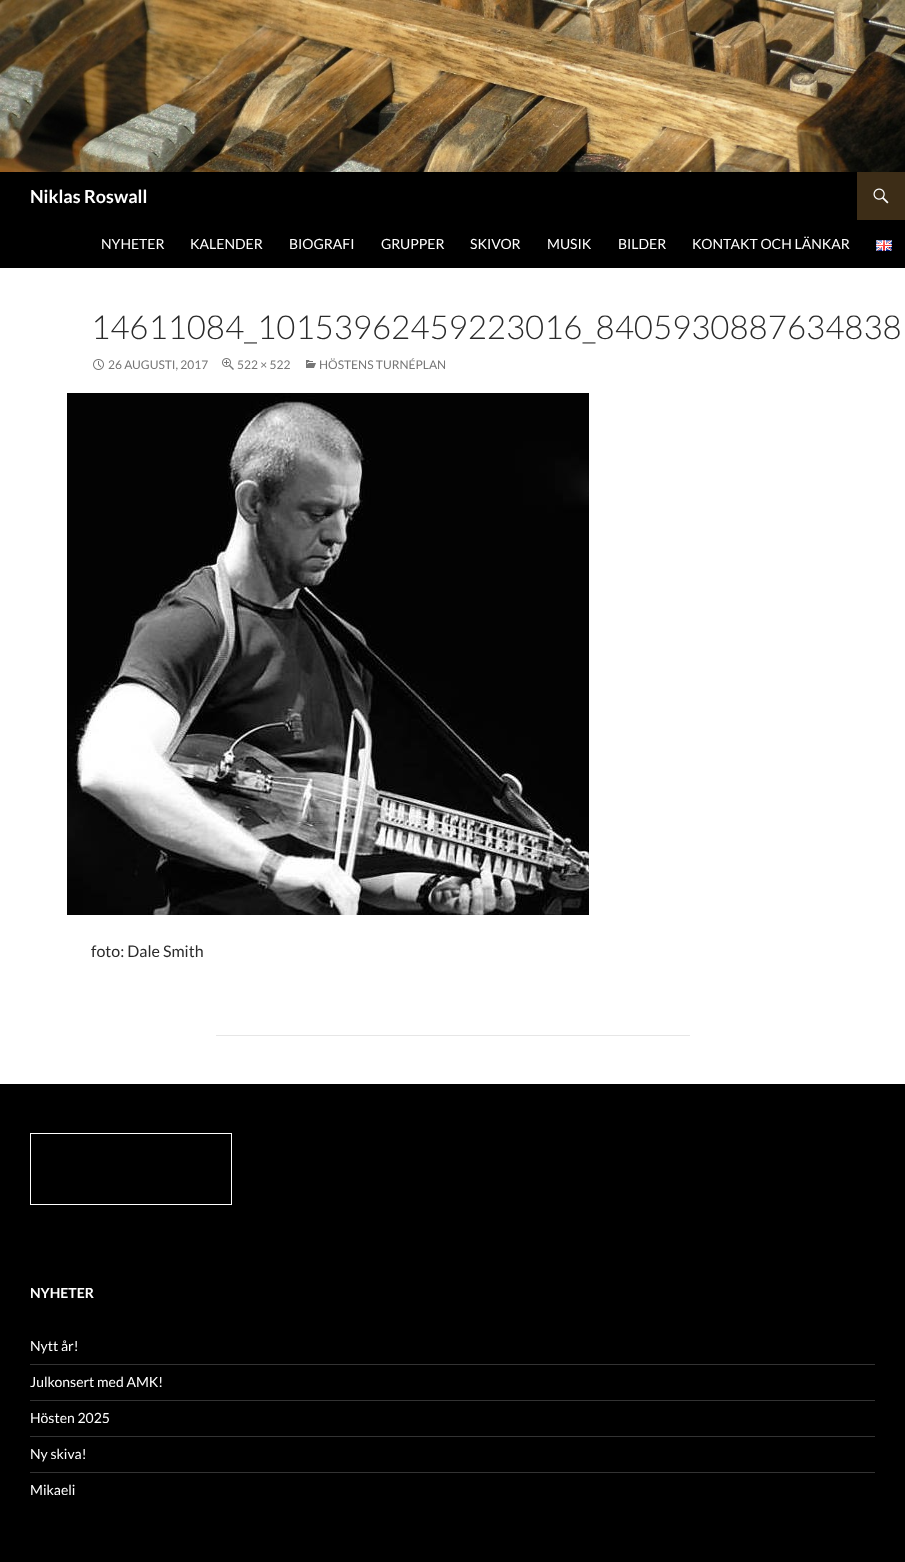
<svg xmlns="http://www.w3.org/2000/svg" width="905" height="1562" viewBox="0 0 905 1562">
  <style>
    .t1 { font: bold 18px Lato; fill: #fff; }
    .t2 { font: 14px Lato; fill: #fff; }
    .t3 { font: 300 33px Lato; fill: #2b2b2b; }
    .t4 { font: 12px Lato; fill: #767676; }
    .t5 { font: 16px Lato; fill: #2b2b2b; }
    .t6 { font: bold 14px Lato; fill: #fff; }
  </style>
  <rect width="100%" height="100%" fill="#fff"/>
  <image x="0" y="0" width="905" height="172" href="images/1.png"/>
  <rect x="0" y="172" width="905" height="96" fill="#000"/>
  <text x="30" y="203" class="t1">Niklas Roswall</text>
  <rect x="857" y="172" width="48" height="48" fill="#3d2d17"/>
  <image x="873" y="188" width="16" height="16" href="images/2.png"/>
  <text x="101" y="249" class="t2">NYHETER</text>
  <text x="190" y="249" class="t2">KALENDER</text>
  <text x="289" y="249" class="t2">BIOGRAFI</text>
  <text x="381" y="249" class="t2">GRUPPER</text>
  <text x="470" y="249" class="t2">SKIVOR</text>
  <text x="547" y="249" class="t2">MUSIK</text>
  <text x="618" y="249" class="t2">BILDER</text>
  <text x="692" y="249" class="t2">KONTAKT OCH LÄNKAR</text>
  <image x="876" y="240" width="16" height="11" href="images/3.png"/>
  <text x="91" y="339" class="t3">14611084_10153962459223016_8405930887634838</text>
  <image x="93" y="359" width="11" height="11" href="images/4.png"/>
  <text x="108" y="369" class="t4">26 AUGUSTI, 2017</text>
  <image x="222" y="358" width="12" height="12" href="images/5.png"/>
  <text x="237" y="369" class="t4">522 × 522</text>
  <image x="306" y="360" width="10" height="8" href="images/6.png"/>
  <text x="319" y="369" class="t4">HÖSTENS TURNÉPLAN</text>
  <image x="67" y="393" width="522" height="522" href="images/7.png"/>
  <text x="91" y="957" class="t5">foto: Dale Smith</text>
  <rect x="216" y="1035" width="474" height="1" fill="#e6e6e6"/>
  <rect x="0" y="1084" width="905" height="478" fill="#000"/>
  <rect x="30.5" y="1133.5" width="201" height="71" fill="none" stroke="#fff"/>
  <text x="30" y="1298" class="t6">NYHETER</text>
  <text x="30" y="1351" class="t2">Nytt år!</text>
  <rect x="30" y="1364" width="845" height="1" fill="#333"/>
  <text x="30" y="1387" class="t2">Julkonsert med AMK!</text>
  <rect x="30" y="1400" width="845" height="1" fill="#333"/>
  <text x="30" y="1423" class="t2">Hösten 2025</text>
  <rect x="30" y="1436" width="845" height="1" fill="#333"/>
  <text x="30" y="1459" class="t2">Ny skiva!</text>
  <rect x="30" y="1472" width="845" height="1" fill="#333"/>
  <text x="30" y="1495" class="t2">Mikaeli</text>
</svg>
